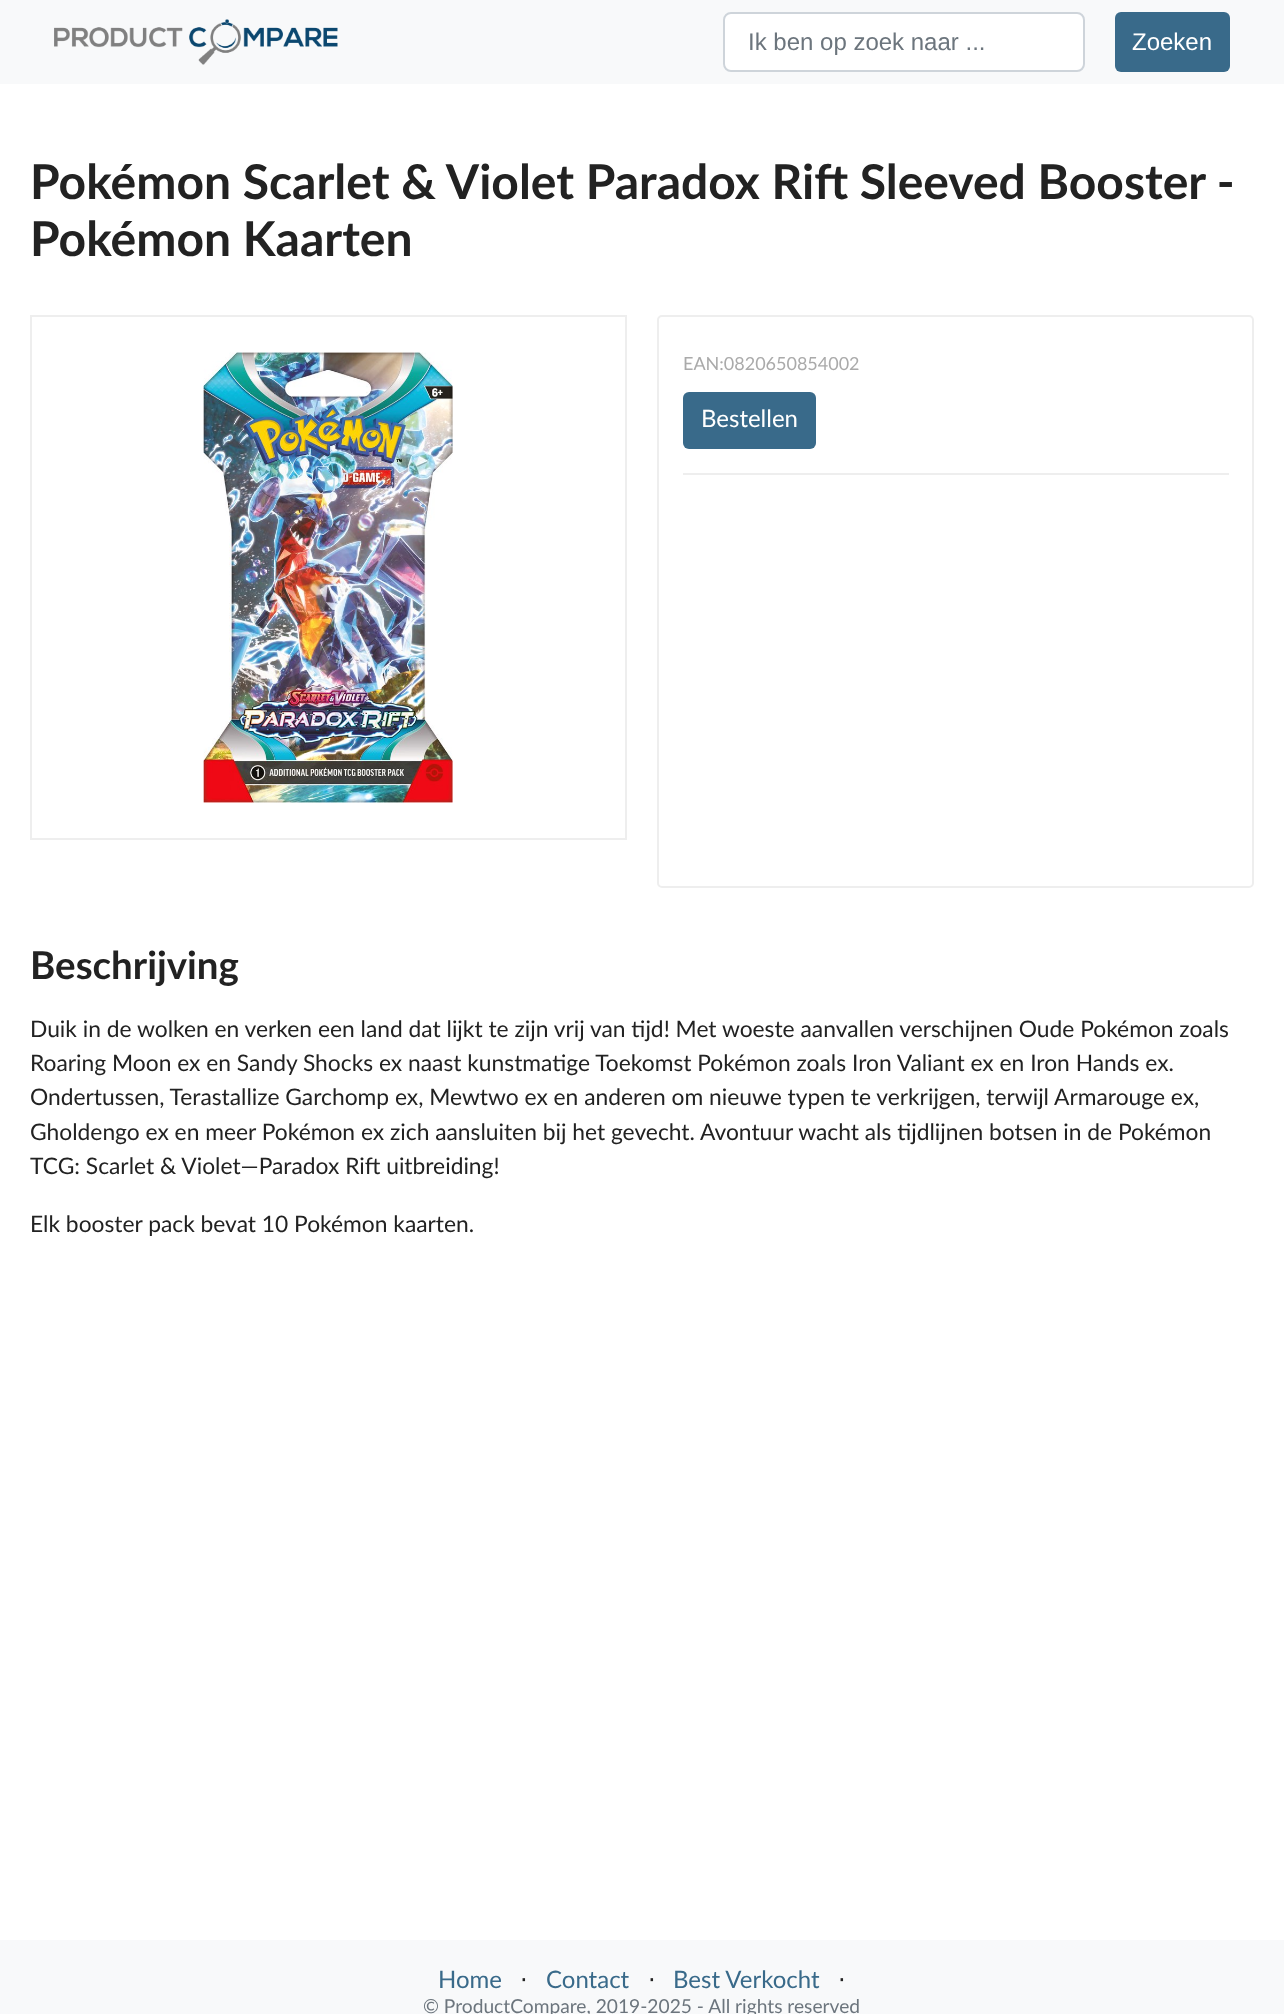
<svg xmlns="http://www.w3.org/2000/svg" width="1284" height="2014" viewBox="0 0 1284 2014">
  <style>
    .t1 { font: 24px Liberation Sans; fill: #6c757d; }
    .t2 { font: 24px Liberation Sans; fill: #fff; }
    .t3 { font: bold 48px Lato; fill: #222; }
    .t4 { font: 18px Lato; fill: #aaa; }
    .t5 { font: 24px Lato; fill: #fff; }
    .t6 { font: bold 38.5px Lato; fill: #222; }
    .t7 { font: 22.8px Lato; fill: #222; }
    .t8 { font: 24px Lato; fill: #396a8a; }
    .t9 { font: 24px DejaVu Sans; fill: #222; }
    .t10 { font: 19.2px Lato; fill: #6c757d; }
  </style>
  <rect width="100%" height="100%" fill="#fff"/>
  <rect x="0" y="0" width="1284" height="84" fill="#f8f9fa"/>
  <image x="54" y="19" width="284" height="46" href="images/1.png"/>
  <rect x="724" y="13" width="360" height="58" rx="7" fill="#fff" stroke="#ced4da" stroke-width="2"/>
  <text x="748" y="50" class="t1">Ik ben op zoek naar ...</text>
  <rect x="1115" y="12" width="115" height="60" rx="6" fill="#396a8a"/>
  <text x="1132" y="50" class="t2">Zoeken</text>
  <text x="30" y="199" class="t3">Pokémon Scarlet &amp; Violet Paradox Rift Sleeved Booster -</text>
  <text x="30" y="256" class="t3">Pokémon Kaarten</text>
  <rect x="31" y="316" width="595" height="523" fill="none" stroke="#eee" stroke-width="2"/>
  <image x="203" y="352" width="250" height="451" href="images/2.png"/>
  <rect x="658" y="316" width="595" height="571" rx="4" fill="none" stroke="#eee" stroke-width="2"/>
  <text x="683" y="370" class="t4">EAN:0820650854002</text>
  <rect x="683" y="473" width="546" height="2" fill="#eee"/>
  <rect x="683" y="392" width="133" height="57" rx="6" fill="#396a8a"/>
  <text x="701" y="427" class="t5">Bestellen</text>
  <text x="30" y="979" class="t6">Beschrijving</text>
  <text x="30" y="1037" class="t7">Duik in de wolken en verken een land dat lijkt te zijn vrij van tijd! Met woeste aanvallen verschijnen Oude Pokémon zoals</text>
  <text x="30" y="1071" class="t7">Roaring Moon ex en Sandy Shocks ex naast kunstmatige Toekomst Pokémon zoals Iron Valiant ex en Iron Hands ex.</text>
  <text x="30" y="1105" class="t7">Ondertussen, Terastallize Garchomp ex, Mewtwo ex en anderen om nieuwe typen te verkrijgen, terwijl Armarouge ex,</text>
  <text x="30" y="1140" class="t7">Gholdengo ex en meer Pokémon ex zich aansluiten bij het gevecht. Avontuur wacht als tijdlijnen botsen in de Pokémon</text>
  <text x="30" y="1174" class="t7">TCG: Scarlet &amp; Violet—Paradox Rift uitbreiding!</text>
  <text x="30" y="1232" class="t7">Elk booster pack bevat 10 Pokémon kaarten.</text>
  <rect x="0" y="1940" width="1284" height="74" fill="#f8f9fa"/>
  <text x="438" y="1988" class="t8">Home</text>
  <text x="520" y="1988" class="t9">⋅</text>
  <text x="546" y="1988" class="t8">Contact</text>
  <text x="648" y="1988" class="t9">⋅</text>
  <text x="673" y="1988" class="t8">Best Verkocht</text>
  <text x="838" y="1988" class="t9">⋅</text>
  <text x="423" y="2013" class="t10">© ProductCompare, 2019-2025 - All rights reserved</text>
</svg>
